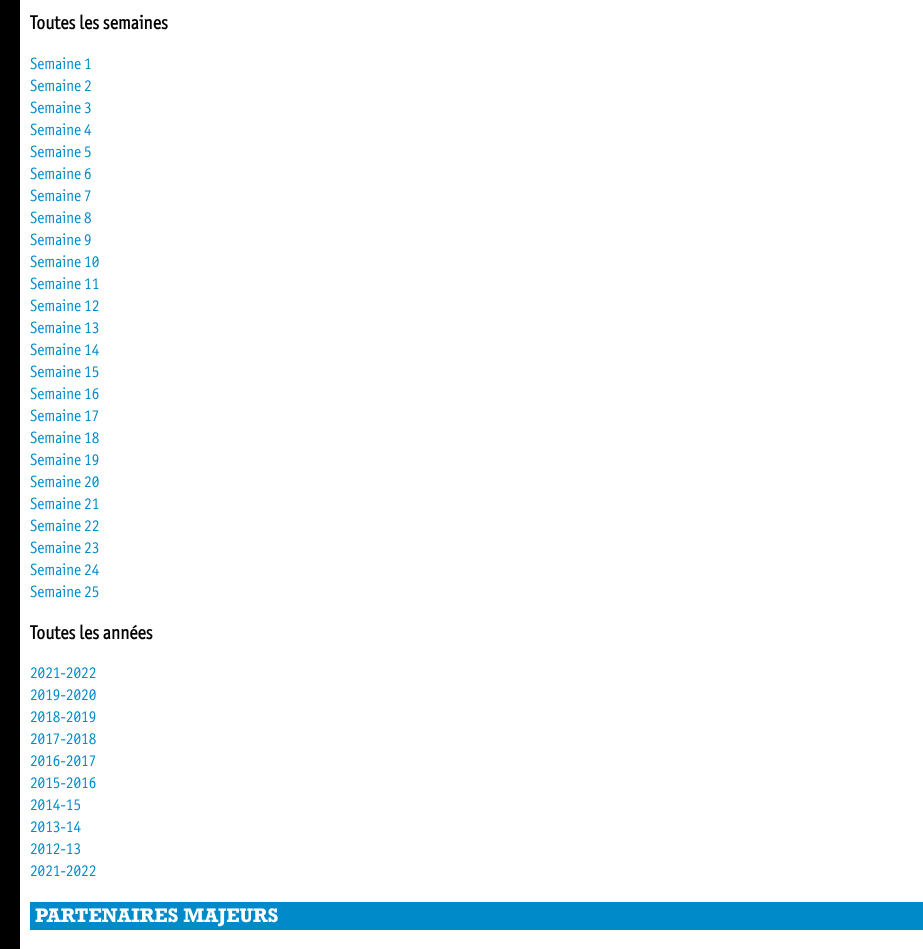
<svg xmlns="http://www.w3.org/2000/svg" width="923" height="949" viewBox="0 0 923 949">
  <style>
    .t1 { font: bold 18.75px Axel; fill: #000; }
    .t2 { font: 16px Axel; fill: #008ac9; }
    .t3 { font: bold 20px Rockwell; fill: #fff; }
  </style>
  <rect width="100%" height="100%" fill="#000"/>
  <rect x="20" y="0" width="903" height="949" fill="#fff"/>
  <text x="30" y="29" class="t1">Toutes les semaines</text>
  <text x="30" y="69" class="t2">Semaine 1</text>
  <text x="30" y="91" class="t2">Semaine 2</text>
  <text x="30" y="113" class="t2">Semaine 3</text>
  <text x="30" y="135" class="t2">Semaine 4</text>
  <text x="30" y="157" class="t2">Semaine 5</text>
  <text x="30" y="179" class="t2">Semaine 6</text>
  <text x="30" y="201" class="t2">Semaine 7</text>
  <text x="30" y="223" class="t2">Semaine 8</text>
  <text x="30" y="245" class="t2">Semaine 9</text>
  <text x="30" y="267" class="t2">Semaine 10</text>
  <text x="30" y="289" class="t2">Semaine 11</text>
  <text x="30" y="311" class="t2">Semaine 12</text>
  <text x="30" y="333" class="t2">Semaine 13</text>
  <text x="30" y="355" class="t2">Semaine 14</text>
  <text x="30" y="377" class="t2">Semaine 15</text>
  <text x="30" y="399" class="t2">Semaine 16</text>
  <text x="30" y="421" class="t2">Semaine 17</text>
  <text x="30" y="443" class="t2">Semaine 18</text>
  <text x="30" y="465" class="t2">Semaine 19</text>
  <text x="30" y="487" class="t2">Semaine 20</text>
  <text x="30" y="509" class="t2">Semaine 21</text>
  <text x="30" y="531" class="t2">Semaine 22</text>
  <text x="30" y="553" class="t2">Semaine 23</text>
  <text x="30" y="575" class="t2">Semaine 24</text>
  <text x="30" y="597" class="t2">Semaine 25</text>
  <text x="30" y="639" class="t1">Toutes les années</text>
  <text x="30" y="678" class="t2">2021-2022</text>
  <text x="30" y="700" class="t2">2019-2020</text>
  <text x="30" y="722" class="t2">2018-2019</text>
  <text x="30" y="744" class="t2">2017-2018</text>
  <text x="30" y="766" class="t2">2016-2017</text>
  <text x="30" y="788" class="t2">2015-2016</text>
  <text x="30" y="810" class="t2">2014-15</text>
  <text x="30" y="832" class="t2">2013-14</text>
  <text x="30" y="854" class="t2">2012-13</text>
  <text x="30" y="876" class="t2">2021-2022</text>
  <rect x="30" y="902" width="893" height="28" fill="#008ac9"/>
  <text x="35" y="922" class="t3">PARTENAIRES MAJEURS</text>
</svg>
